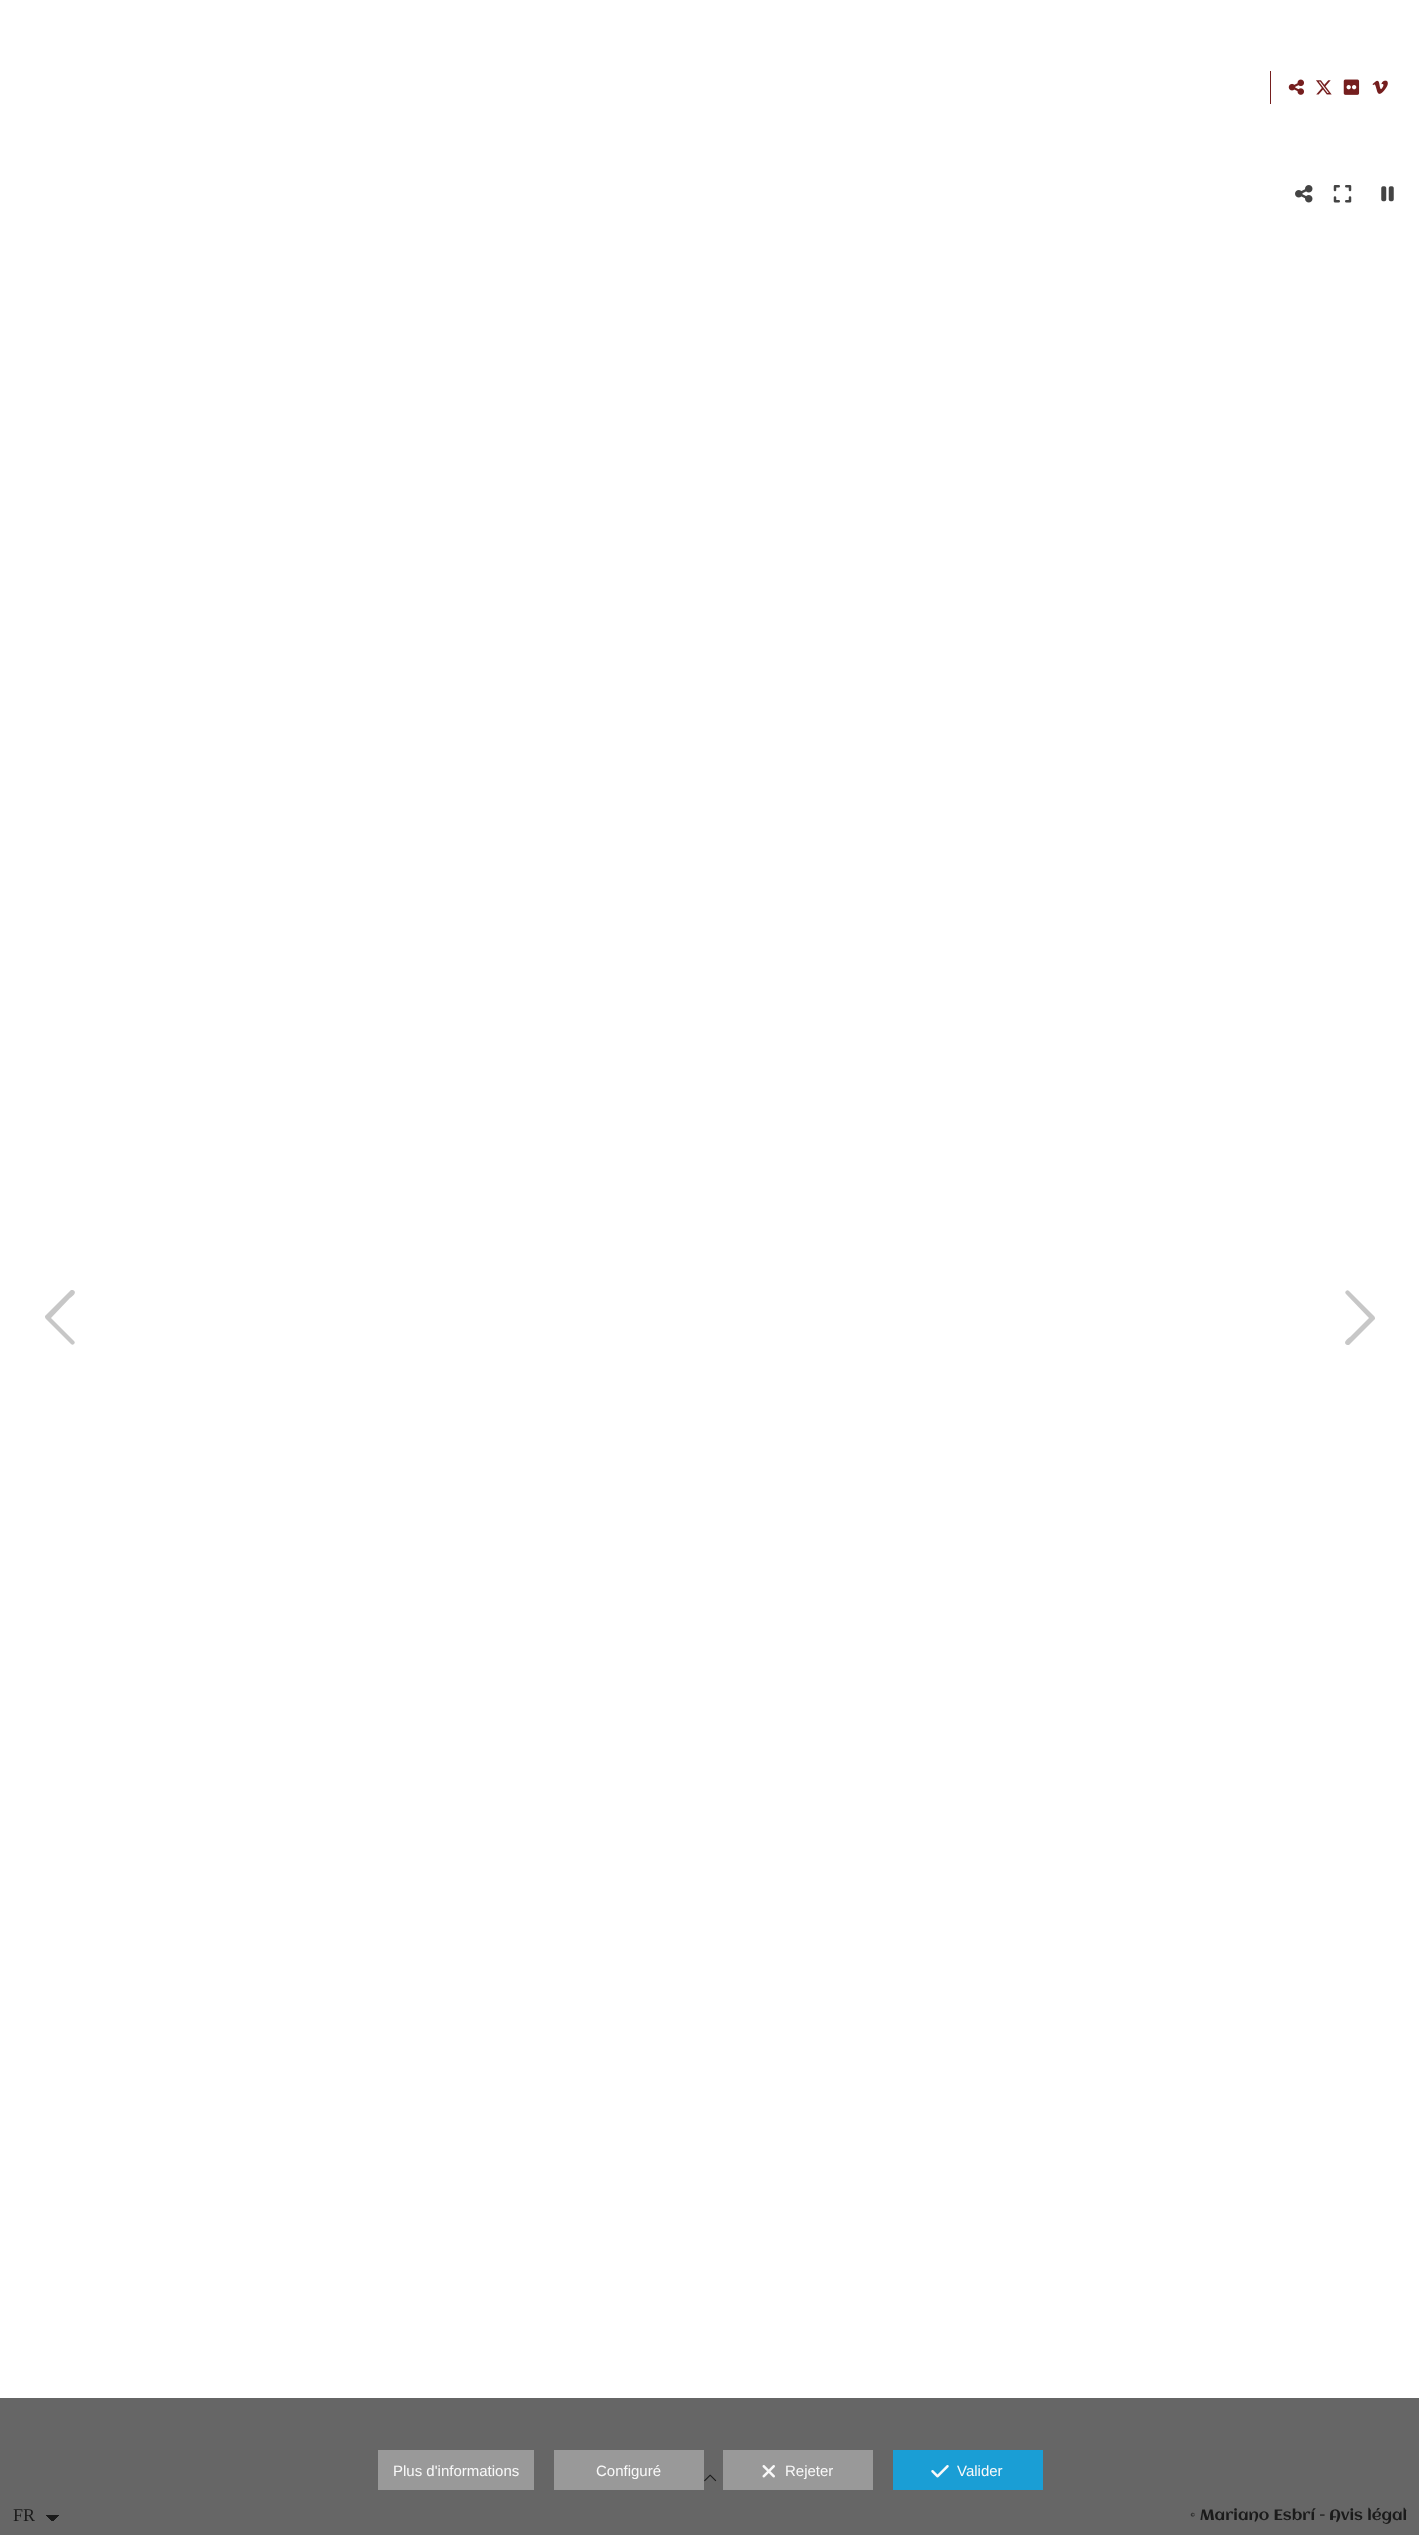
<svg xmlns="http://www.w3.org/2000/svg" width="1419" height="2535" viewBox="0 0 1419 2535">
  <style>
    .t1 { font: 15px Liberation Sans; fill: #f9f9f9; }
    .t2 { font: 18px Liberation Serif; fill: #1b1b1b; }
    .t3 { font: 15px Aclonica; fill: #1b1b1b; }
    .t4 { font: 14px Aclonica; fill: #1b1b1b; }
  </style>
  <defs>
    <linearGradient id="g1" gradientUnits="userSpaceOnUse" x1="53" y1="2515" x2="59" y2="2522"><stop offset="0.5" stop-color="#1b1b1b"/><stop offset="0.5" stop-color="#666"/></linearGradient>
    <linearGradient id="g2" gradientUnits="userSpaceOnUse" x1="46" y1="2522" x2="53" y2="2515"><stop offset="0.5" stop-color="#666"/><stop offset="0.5" stop-color="#1b1b1b"/></linearGradient>
  </defs>
  <rect width="100%" height="100%" fill="#fff"/>
  <rect x="0" y="2398" width="1419" height="137" fill="#666"/>
  <rect x="378" y="2450" width="156" height="40" fill="#999"/>
  <text x="393" y="2476" class="t1">Plus d'informations</text>
  <rect x="554" y="2450" width="150" height="40" fill="#999"/>
  <text x="596" y="2476" class="t1">Configuré</text>
  <rect x="723" y="2450" width="150" height="40" fill="#999"/>
  <image x="762" y="2465" width="13" height="13" href="images/1.png"/>
  <text x="785" y="2476" class="t1">Rejeter</text>
  <rect x="893" y="2450" width="150" height="40" fill="#1a9ed5"/>
  <image x="931" y="2465" width="18" height="13" href="images/2.png"/>
  <text x="957" y="2476" class="t1">Valider</text>
  <rect x="1270" y="71" width="1" height="33" fill="#751e1e"/>
  <image x="1288" y="79" width="16" height="16" href="images/3.png"/>
  <image x="1316" y="80" width="16" height="15" href="images/4.png"/>
  <image x="1343" y="79" width="17" height="16" href="images/5.png"/>
  <image x="1372" y="80" width="16" height="14" href="images/6.png"/>
  <image x="1295" y="185" width="18" height="18" href="images/7.png"/>
  <image x="1333" y="185" width="19" height="18" href="images/8.png"/>
  <image x="1381" y="186" width="13" height="16" href="images/9.png"/>
  <path d="M46 1319C45 1318 45 1317 45 1316L71 1290H73C78 1292 72 1297 70 1298L51 1318L74 1341C75 1342 75 1343 74 1344C73 1345 72 1345 71 1344Z" fill="#c7c7c7"/>
  <path d="M1374 1316C1375 1317 1375 1318 1375 1319L1349 1345H1347C1342 1343 1348 1338 1350 1337L1369 1318L1346 1294C1345 1293 1345 1292 1346 1291C1347 1290 1348 1290 1349 1291Z" fill="#c7c7c7"/>
  <image x="704" y="2474" width="13" height="8" href="images/10.png"/>
  <rect x="53" y="2515" width="6" height="6" fill="url(#g1)"/>
  <rect x="46" y="2515" width="7" height="6" fill="url(#g2)"/>
  <text x="13" y="2521" class="t2">FR</text>
  <text x="1190" y="2520" class="t3">© Mariano Esbrí</text>
  <text x="1319" y="2520" class="t4">-</text>
  <text x="1329" y="2520" class="t3">Avis légal</text>
</svg>
